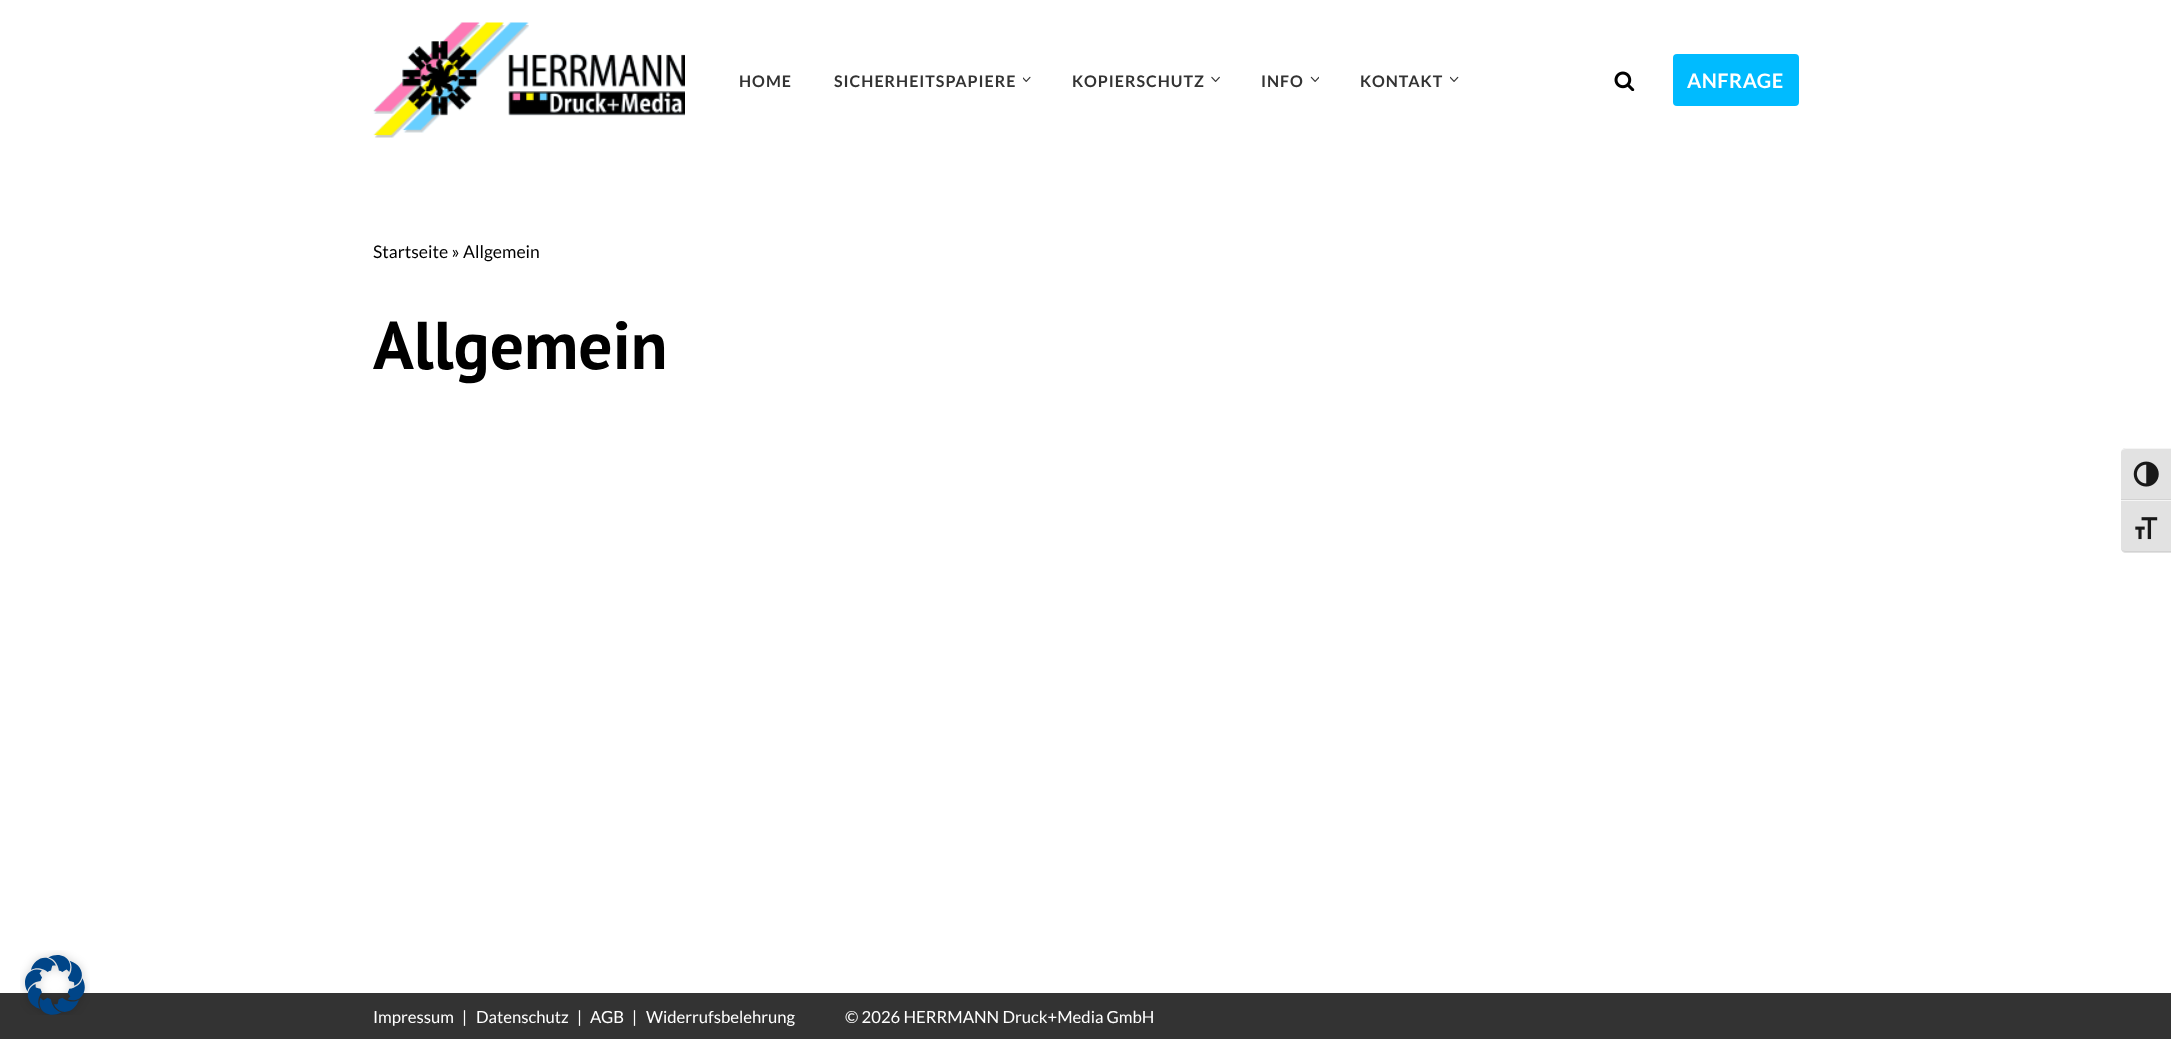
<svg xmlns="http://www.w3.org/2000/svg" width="2171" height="1039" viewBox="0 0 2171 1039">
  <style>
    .t1 { font: bold 16px Lato; letter-spacing: 1px; fill: #333; }
    .t2 { font: bold 20px Lato; letter-spacing: 0.5px; fill: #fff; }
    .t3 { font: 17.5px Lato; fill: #000; }
    .t4 { font: bold 67.5px PT Sans; fill: #000; }
    .t5 { font: 16.7px Lato; fill: #fff; }
  </style>
  <rect width="100%" height="100%" fill="#fff"/>
  <image x="373" y="22" width="312" height="116" href="images/1.png"/>
  <text x="739" y="87" class="t1">HOME</text>
  <text x="834" y="87" class="t1">SICHERHEITSPAPIERE</text>
  <image x="1023" y="76" width="8" height="6" href="images/2.png"/>
  <text x="1072" y="87" class="t1">KOPIERSCHUTZ</text>
  <image x="1211" y="76" width="9" height="6" href="images/3.png"/>
  <text x="1261" y="87" class="t1">INFO</text>
  <image x="1310" y="76" width="9" height="6" href="images/4.png"/>
  <text x="1360" y="87" class="t1">KONTAKT</text>
  <image x="1450" y="76" width="9" height="6" href="images/5.png"/>
  <image x="1614" y="71" width="21" height="20" href="images/6.png"/>
  <rect x="1673" y="54" width="126" height="52" rx="4" fill="#0bf"/>
  <text x="1687" y="88" class="t2">ANFRAGE</text>
  <text x="373" y="258" class="t3">Startseite » Allgemein</text>
  <text x="373" y="369" class="t4">Allgemein</text>
  <rect x="0" y="993" width="2171" height="46" fill="#333"/>
  <text x="373" y="1023" class="t5">Impressum</text>
  <text x="462" y="1023" class="t5">|</text>
  <text x="476" y="1023" class="t5">Datenschutz</text>
  <text x="577" y="1023" class="t5">|</text>
  <text x="590" y="1023" class="t5">AGB</text>
  <text x="632" y="1023" class="t5">|</text>
  <text x="646" y="1023" class="t5">Widerrufsbelehrung</text>
  <text x="845" y="1023" class="t5">© 2026 HERRMANN Druck+Media GmbH</text>
  <path d="M2126 448H2171V500H2121V453C2121 450 2123 448 2126 448Z" fill="#e2e2e2"/>
  <path d="M2126 448H2171V449H2126C2124 449 2122 450 2121 451C2121 449 2125 448 2126 448Z" fill="#f5f5f5"/>
  <rect x="2121" y="499" width="50" height="1" fill="#d2d2d2"/>
  <image x="2133" y="461" width="26" height="26" href="images/7.png"/>
  <path d="M2121 500H2171V553H2126C2123 553 2121 551 2121 548Z" fill="#e2e2e2"/>
  <rect x="2121" y="500" width="50" height="1" fill="#f5f5f5"/>
  <path d="M2171 552V551H2126C2124 551 2122 550 2121 549C2122 551 2124 552 2126 552Z" fill="#d2d2d2"/>
  <image x="2135" y="517" width="23" height="23" href="images/8.png"/>
  <image x="20" y="950" width="70" height="65" href="images/9.png"/>
</svg>
